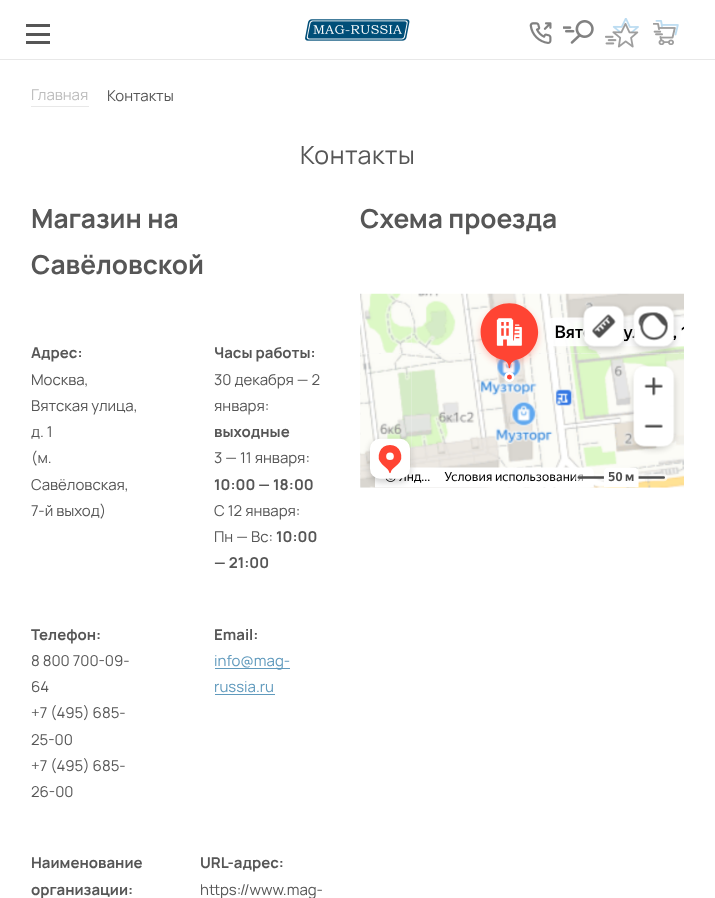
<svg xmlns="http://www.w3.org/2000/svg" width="715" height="898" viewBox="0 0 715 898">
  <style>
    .t1 { font: 15px Manrope; fill: #bdbdbd; }
    .t2 { font: 15px Manrope; fill: #565656; }
    .t3 { font: 25px Manrope; letter-spacing: 0.5px; fill: #565656; }
    .t4 { font: bold 26.25px Manrope; fill: #565656; }
    .t5 { font: bold 15px Manrope; fill: #565656; }
    .t6 { font: 15px Manrope; fill: #609abd; }
  </style>
  <rect width="100%" height="100%" fill="#fff"/>
  <rect x="0" y="59" width="715" height="1" fill="#e8e8e8"/>
  <rect x="26" y="33" width="24" height="3" fill="#565656"/>
  <rect x="26" y="24" width="24" height="3" fill="#565656"/>
  <rect x="26" y="41" width="24" height="3" fill="#565656"/>
  <image x="305" y="19" width="105" height="22" href="images/1.png"/>
  <image x="529" y="22" width="23" height="22" href="images/2.png"/>
  <image x="563" y="20" width="31" height="24" href="images/3.png"/>
  <image x="605" y="18" width="34" height="30" href="images/4.png"/>
  <image x="653" y="20" width="26" height="25" href="images/5.png"/>
  <rect x="31" y="106" width="58" height="1" fill="#e8e8e8"/>
  <text x="31" y="100" class="t1">Главная</text>
  <text x="107" y="101" class="t2">Контакты</text>
  <text x="300" y="164" class="t3">Контакты</text>
  <text x="31" y="228" class="t4">Магазин на</text>
  <text x="31" y="274" class="t4">Савёловской</text>
  <text x="31" y="358" class="t5">Адрес:</text>
  <text x="31" y="385" class="t2">Москва,</text>
  <text x="31" y="411" class="t2">Вятская улица,</text>
  <text x="31" y="437" class="t2">д. 1</text>
  <text x="31" y="463" class="t2">(м.</text>
  <text x="31" y="490" class="t2">Савёловская,</text>
  <text x="31" y="516" class="t2">7-й выход)</text>
  <text x="214" y="358" class="t5">Часы работы:</text>
  <text x="214" y="385" class="t2">30 декабря — 2</text>
  <text x="214" y="411" class="t2">января:</text>
  <text x="214" y="437" class="t5">выходные</text>
  <text x="214" y="463" class="t2">3 — 11 января:</text>
  <text x="214" y="490" class="t5">10:00 — 18:00</text>
  <text x="214" y="516" class="t2">С 12 января:</text>
  <text x="214" y="542" class="t2">Пн — Вс:</text>
  <text x="276" y="542" class="t5">10:00</text>
  <text x="214" y="568" class="t5">— 21:00</text>
  <text x="31" y="640" class="t5">Телефон:</text>
  <text x="31" y="666" class="t2">8 800 700-09-</text>
  <text x="31" y="692" class="t2">64</text>
  <text x="31" y="718" class="t2">+7 (495) 685-</text>
  <text x="31" y="745" class="t2">25-00</text>
  <text x="31" y="771" class="t2">+7 (495) 685-</text>
  <text x="31" y="797" class="t2">26-00</text>
  <text x="214" y="640" class="t5">Email:</text>
  <rect x="215" y="668" width="75" height="1" fill="#609abd"/>
  <text x="214" y="666" class="t6">info@mag-</text>
  <text x="214" y="692" class="t6">russia.ru</text>
  <rect x="215" y="694" width="60" height="1" fill="#609abd"/>
  <text x="31" y="868" class="t5">Наименование</text>
  <text x="31" y="895" class="t5">организации:</text>
  <text x="200" y="868" class="t5">URL-адрес:</text>
  <text x="200" y="895" class="t2">https://www.mag-</text>
  <text x="360" y="228" class="t4">Схема проезда</text>
  <image x="360" y="293" width="324" height="195" href="images/6.png"/>
</svg>
